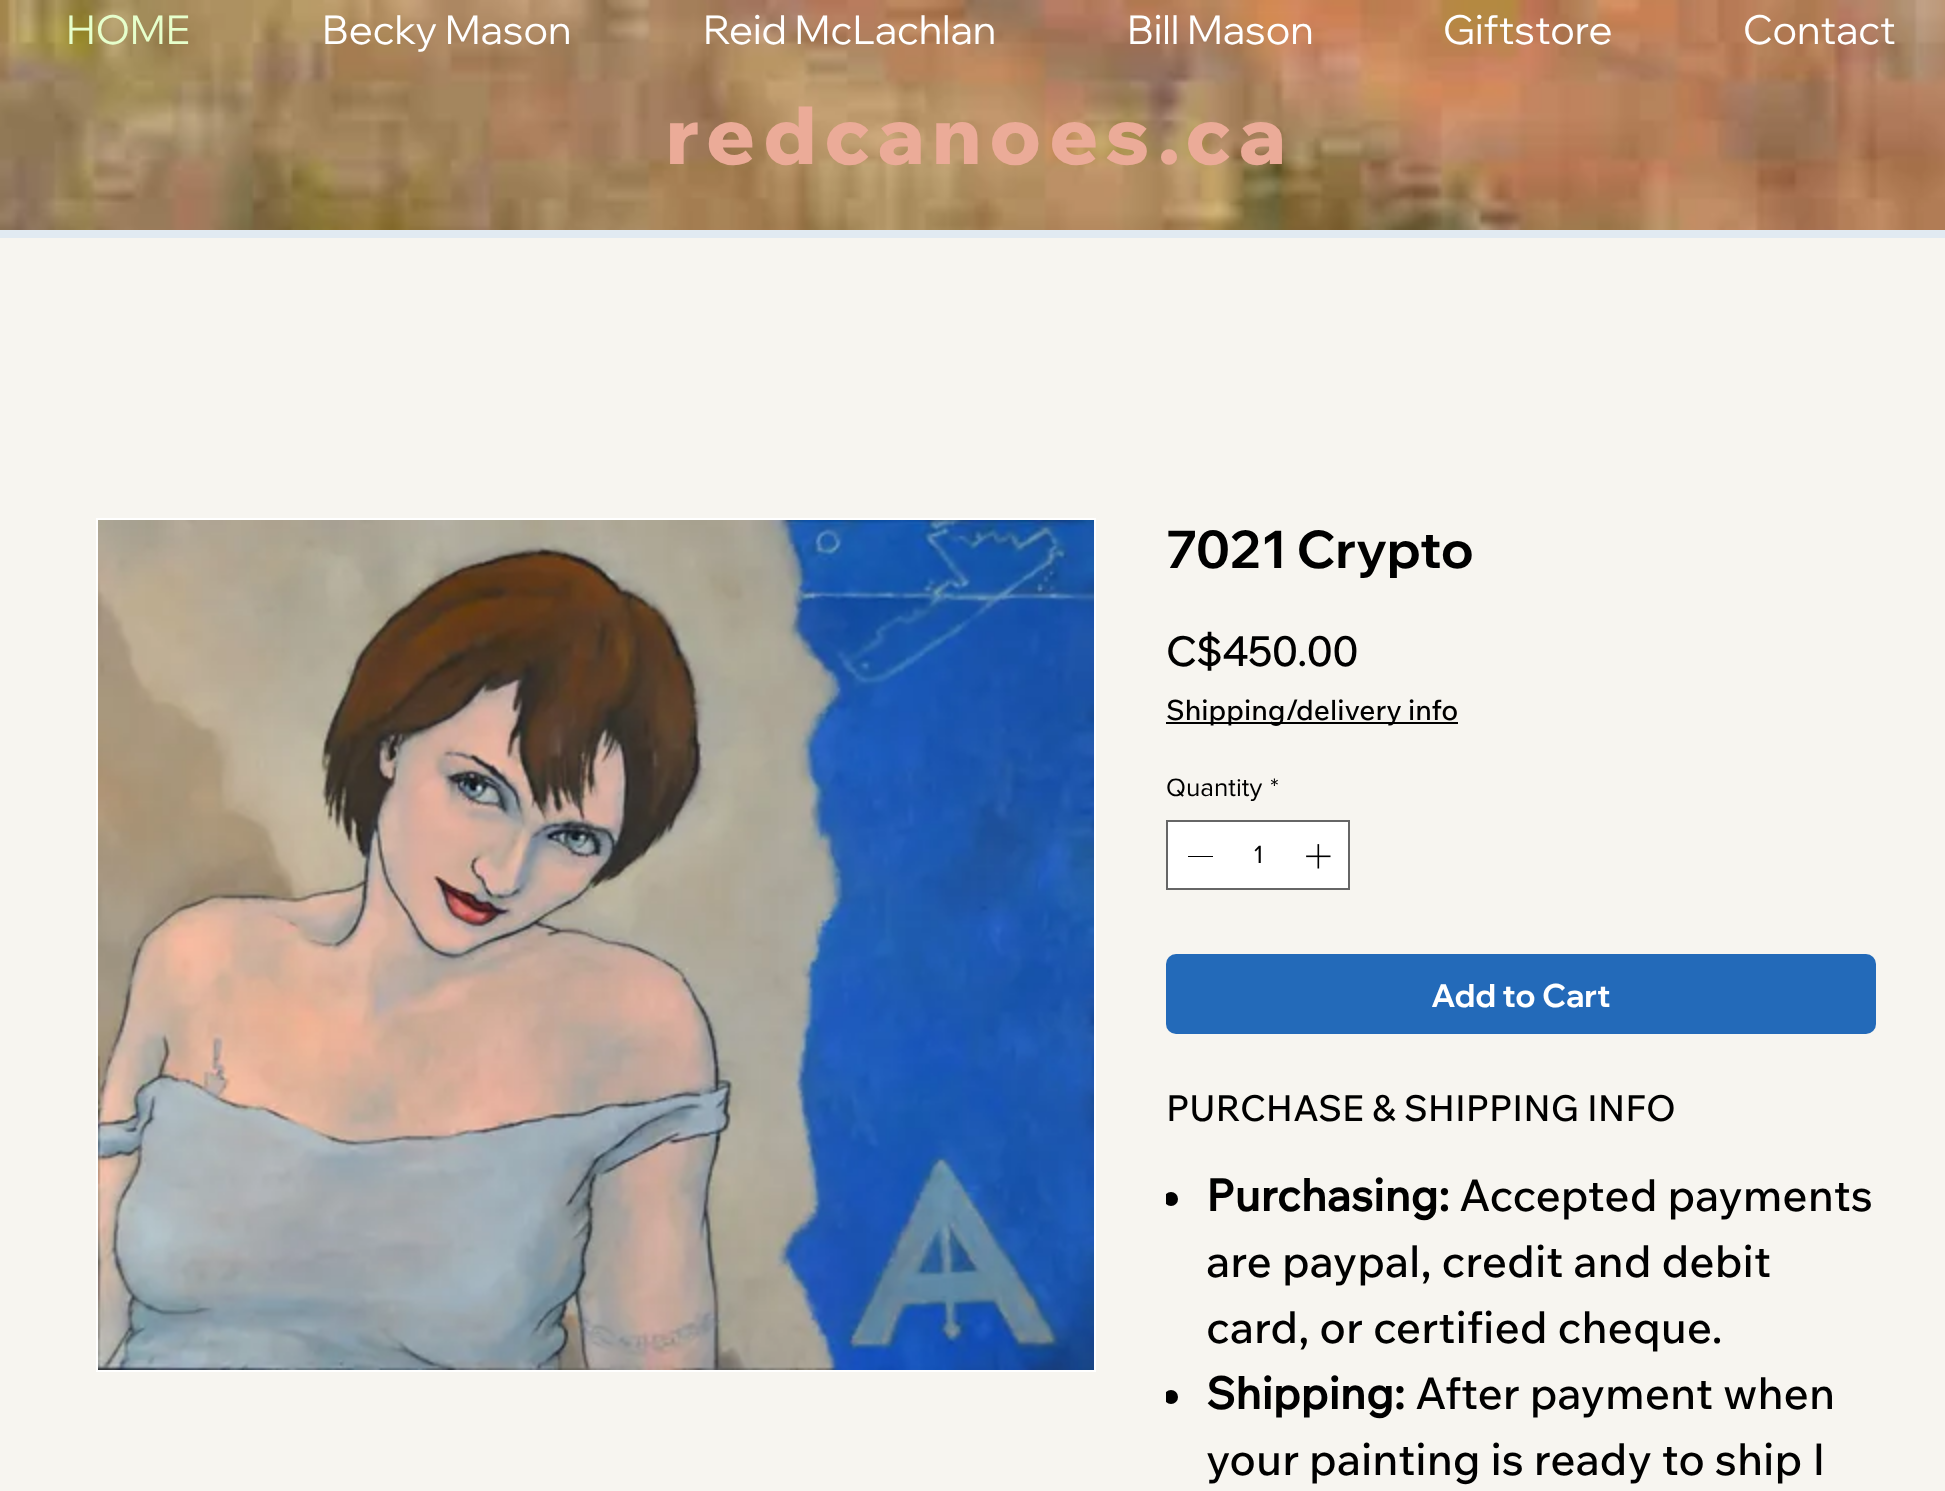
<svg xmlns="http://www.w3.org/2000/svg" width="1945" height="1491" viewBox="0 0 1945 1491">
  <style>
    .t1 { font: 40px Wix Madefor Display; fill: #e6ffcc; }
    .t2 { font: 40px Wix Madefor Display; fill: #fff; }
    .t3 { font: 800 80px Wix Madefor Display; letter-spacing: 8px; fill: #ebab98; }
    .t4 { font: bold 52px Wix Madefor Display; fill: #000; }
    .t5 { font: bold 40px 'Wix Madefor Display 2'; fill: #000; }
    .t6 { font: 500 28px Wix Madefor Text; fill: #000; }
    .t7 { font: 26px 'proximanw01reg'; fill: #000; }
    .t8 { font: bold 32px Wix Madefor Display; fill: #fff; }
    .t9 { font: 500 36px Wix Madefor Text; fill: #000; }
    .t10 { font: bold 44px Wix Madefor Text; fill: #000; }
    .t11 { font: 500 44px Wix Madefor Text; fill: #000; }
  </style>
  <defs>
    <clipPath id="clip1"><rect x="1166" y="1082" width="710" height="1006"/></clipPath>
  </defs>
  <rect width="100%" height="100%" fill="#e1eaf2"/>
  <image x="0" y="0" width="1945" height="230" href="images/1.png"/>
  <text x="66" y="44" class="t1">HOME</text>
  <text x="322" y="44" class="t2">Becky Mason</text>
  <text x="703" y="44" class="t2">Reid McLachlan</text>
  <text x="1127" y="44" class="t2">Bill Mason</text>
  <text x="1443" y="44" class="t2">Giftstore</text>
  <text x="1743" y="44" class="t2">Contact</text>
  <text x="666" y="164" class="t3">redcanoes.ca</text>
  <rect x="0" y="238" width="1945" height="1253" fill="#f7f5f0"/>
  <rect x="97" y="519" width="998" height="852" fill="none" stroke="#fff" stroke-width="2"/>
  <image x="98" y="520" width="996" height="850" href="images/2.png"/>
  <text x="1166" y="568" class="t4">7021 Crypto</text>
  <text x="1166" y="666" class="t5">C$450.00</text>
  <rect x="1166" y="722" width="292" height="2" fill="#000"/>
  <text x="1166" y="720" class="t6">Shipping/delivery info</text>
  <text x="1166" y="796" class="t7">Quantity</text>
  <text x="1270" y="796" class="t7">*</text>
  <rect x="1167" y="821" width="182" height="68" fill="#fff" stroke="#666" stroke-width="2"/>
  <rect x="1188" y="856" width="25" height="1" fill="#000"/>
  <text x="1254" y="863" class="t7">1</text>
  <image x="1306" y="844" width="25" height="25" href="images/3.png"/>
  <rect x="1166" y="954" width="710" height="80" rx="10" fill="#236ab9"/>
  <text x="1431" y="1007" class="t8">Add to Cart</text>
  <text x="1166" y="1121" class="t9">PURCHASE &amp; SHIPPING INFO</text>
  <g clip-path="url(#clip1)">
    <circle cx="1171" cy="1199" r="7" fill="#000"/>
  </g>
  <text x="1206" y="1211" class="t10">Purchasing:</text>
  <text x="1459" y="1211" class="t11">Accepted payments</text>
  <text x="1206" y="1277" class="t11">are paypal, credit and debit</text>
  <text x="1206" y="1343" class="t11">card, or certified cheque.</text>
  <g clip-path="url(#clip1)">
    <circle cx="1171" cy="1397" r="7" fill="#000"/>
  </g>
  <text x="1206" y="1409" class="t10">Shipping:</text>
  <text x="1415" y="1409" class="t11">After payment when</text>
  <text x="1206" y="1475" class="t11">your painting is ready to ship I</text>
</svg>
